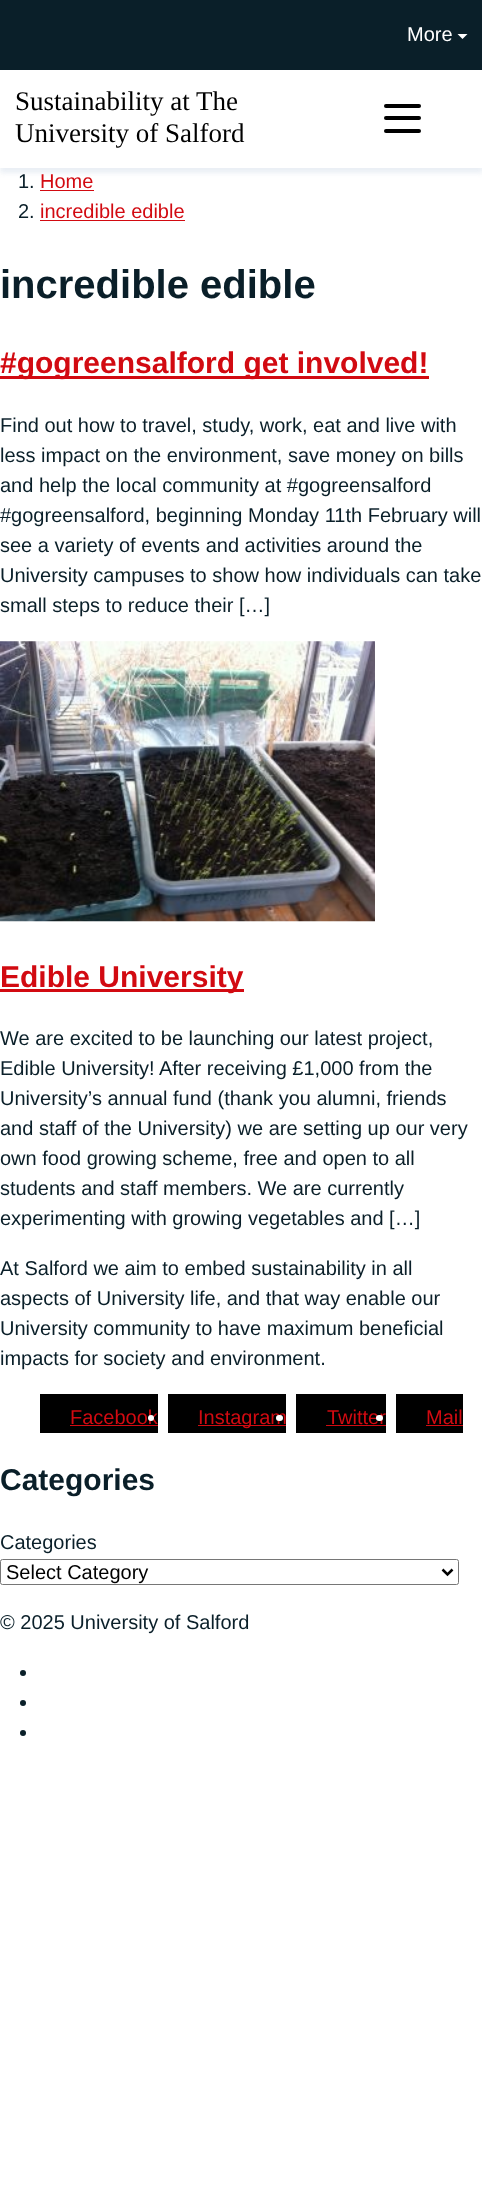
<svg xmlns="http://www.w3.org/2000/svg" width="482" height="2201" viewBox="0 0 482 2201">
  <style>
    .t1 { font: 20px Liberation Sans; fill: #fff; }
    .t2 { font: 27px Liberation Serif; fill: #000; }
    .t3 { font: 20px Liberation Sans; fill: #0a1f29; }
    .t4 { font: 20px Liberation Sans; fill: #d20a11; }
    .t5 { font: bold 40px Liberation Sans; fill: #0a1f29; }
    .t6 { font: bold 30px Liberation Sans; fill: #d20a11; }
    .t7 { font: bold 30px Liberation Sans; fill: #0a1f29; }
    .t8 { font: 20px Liberation Sans; fill: #000; }
  </style>
  <defs>
    <clipPath id="clip1"><path d="M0 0H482V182H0ZM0 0H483V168H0Z" clip-rule="evenodd"/></clipPath>
  </defs>
  <rect width="100%" height="100%" fill="#fff"/>
  <g clip-path="url(#clip1)">
    <rect x="0" y="5" width="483" height="168" fill="#eaeff5" filter="blur(2.5px)"/>
  </g>
  <rect x="0" y="0" width="482" height="70" fill="#0a1f29"/>
  <text x="407" y="41" class="t1">More</text>
  <path d="M457.5 34H467.5L462.5 39Z" fill="#fff"/>
  <text x="15" y="110" class="t2">Sustainability at The</text>
  <text x="15" y="142" class="t2">University of Salford</text>
  <rect x="384" y="104" width="37" height="4" rx="2" fill="#000"/>
  <rect x="384" y="116" width="37" height="4" rx="2" fill="#000"/>
  <rect x="384" y="129" width="37" height="4" rx="2" fill="#000"/>
  <text x="18" y="188" class="t3">1.</text>
  <text x="40" y="188" class="t4">Home</text>
  <rect x="40" y="190" width="54" height="1" fill="#d20a11"/>
  <text x="18" y="218" class="t3">2.</text>
  <text x="40" y="218" class="t4">incredible edible</text>
  <rect x="40" y="220" width="145" height="1" fill="#d20a11"/>
  <text x="0" y="298" class="t5">incredible edible</text>
  <rect x="0" y="376" width="429" height="3" fill="#d20a11"/>
  <text x="0" y="373" class="t6">#gogreensalford get involved!</text>
  <text x="0" y="432" class="t3">Find out how to travel, study, work, eat and live with</text>
  <text x="0" y="462" class="t3">less impact on the environment, save money on bills</text>
  <text x="0" y="492" class="t3">and help the local community at #gogreensalford</text>
  <text x="0" y="522" class="t3">#gogreensalford, beginning Monday 11th February will</text>
  <text x="0" y="552" class="t3">see a variety of events and activities around the</text>
  <text x="0" y="582" class="t3">University campuses to show how individuals can take</text>
  <text x="0" y="612" class="t3">small steps to reduce their […]</text>
  <image x="0" y="641" width="375" height="281" href="images/1.png"/>
  <rect x="0" y="989" width="244" height="3" fill="#d20a11"/>
  <text x="0" y="987" class="t6">Edible University</text>
  <text x="0" y="1045" class="t3">We are excited to be launching our latest project,</text>
  <text x="0" y="1075" class="t3">Edible University! After receiving £1,000 from the</text>
  <text x="0" y="1105" class="t3">University’s annual fund (thank you alumni, friends</text>
  <text x="0" y="1135" class="t3">and staff of the University) we are setting up our very</text>
  <text x="0" y="1165" class="t3">own food growing scheme, free and open to all</text>
  <text x="0" y="1195" class="t3">students and staff members. We are currently</text>
  <text x="0" y="1225" class="t3">experimenting with growing vegetables and […]</text>
  <text x="0" y="1275" class="t3">At Salford we aim to embed sustainability in all</text>
  <text x="0" y="1305" class="t3">aspects of University life, and that way enable our</text>
  <text x="0" y="1335" class="t3">University community to have maximum beneficial</text>
  <text x="0" y="1365" class="t3">impacts for society and environment.</text>
  <rect x="40" y="1394" width="118" height="39" fill="#000"/>
  <text x="70" y="1424" class="t4">Facebook</text>
  <rect x="70" y="1425" width="88" height="1" fill="#d20a11"/>
  <rect x="168" y="1394" width="118" height="39" fill="#000"/>
  <circle cx="151" cy="1418" r="3" fill="#fff"/>
  <rect x="198" y="1425" width="88" height="1" fill="#d20a11"/>
  <text x="198" y="1424" class="t4">Instagram</text>
  <rect x="296" y="1394" width="90" height="39" fill="#000"/>
  <rect x="276" y="1415" width="7" height="6" rx="3" fill="#fff"/>
  <text x="327" y="1424" class="t4">Twitter</text>
  <rect x="326" y="1425" width="60" height="1" fill="#d20a11"/>
  <rect x="396" y="1394" width="67" height="39" fill="#000"/>
  <rect x="376" y="1415" width="7" height="6" rx="3" fill="#fff"/>
  <text x="426" y="1424" class="t4">Mail</text>
  <rect x="426" y="1425" width="37" height="1" fill="#d20a11"/>
  <text x="0" y="1490" class="t7">Categories</text>
  <text x="0" y="1549" class="t3">Categories</text>
  <rect x="0.5" y="1559.5" width="458" height="25" rx="2" fill="none" stroke="#767676"/>
  <path d="M442.5 1569.5L447.5 1574.5L452.5 1569.5" fill="none" stroke="#000" stroke-width="2.5"/>
  <text x="6" y="1579" class="t8">Select Category</text>
  <text x="0" y="1629" class="t3">© 2025 University of Salford</text>
  <circle cx="23" cy="1673" r="3" fill="#0a1f29"/>
  <circle cx="23" cy="1703" r="3" fill="#0a1f29"/>
  <circle cx="23" cy="1733" r="3" fill="#0a1f29"/>
</svg>
